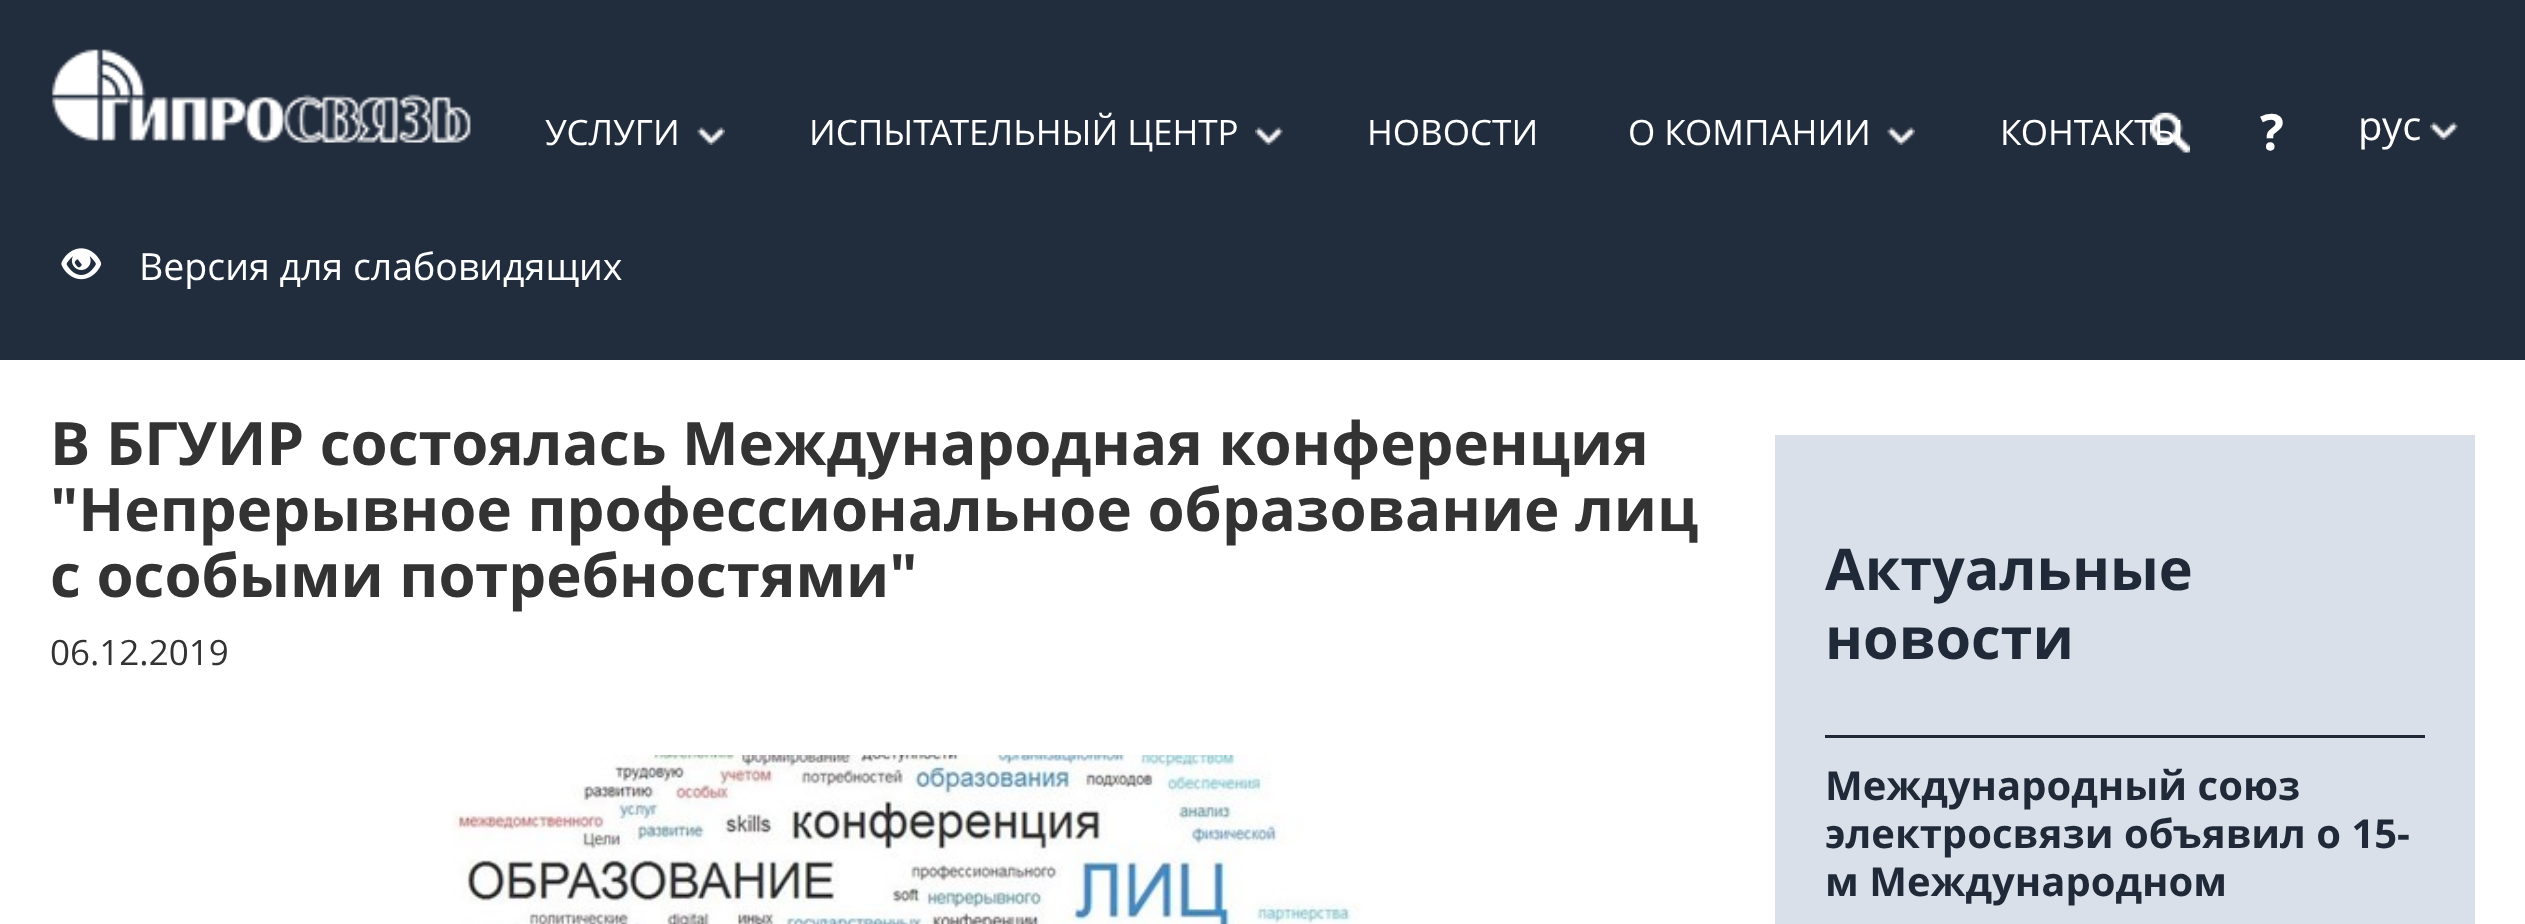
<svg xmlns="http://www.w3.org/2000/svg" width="2525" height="924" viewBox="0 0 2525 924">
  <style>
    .t1 { font: 35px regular; fill: #fff; }
    .t2 { font: bold 50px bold; fill: #fff; }
    .t3 { font: 40px regular; fill: #fff; }
    .t4 { font: 37.5px regular; fill: #fff; }
    .t5 { font: bold 60px bold; fill: #333; }
    .t6 { font: 35px regular; fill: #333; }
    .t7 { font: bold 57.5px bold; fill: #1f2938; }
    .t8 { font: bold 40px bold; fill: #1f2938; }
  </style>
  <rect width="100%" height="100%" fill="#fff"/>
  <rect x="0" y="0" width="2525" height="360" fill="#212c3d"/>
  <image x="51" y="49" width="420" height="94" href="images/1.png"/>
  <text x="545" y="145" class="t1">УСЛУГИ</text>
  <image x="697" y="127" width="28" height="18" href="images/2.png"/>
  <text x="809" y="145" class="t1">ИСПЫТАТЕЛЬНЫЙ ЦЕНТР</text>
  <image x="1255" y="127" width="28" height="18" href="images/3.png"/>
  <text x="1367" y="145" class="t1">НОВОСТИ</text>
  <text x="1628" y="145" class="t1">О КОМПАНИИ</text>
  <image x="1887" y="127" width="28" height="18" href="images/2.png"/>
  <text x="2000" y="145" class="t1">КОНТАКТЫ</text>
  <image x="2150" y="112" width="40" height="41" href="images/4.png"/>
  <text x="2260" y="150" class="t2">?</text>
  <text x="2358" y="140" class="t3">рус</text>
  <image x="2430" y="122" width="28" height="18" href="images/5.png"/>
  <image x="61" y="248" width="41" height="32" href="images/6.png"/>
  <text x="139" y="280" class="t4">Версия для слабовидящих</text>
  <text x="50" y="465" class="t5">В БГУИР состоялась Международная конференция</text>
  <text x="50" y="531" class="t5">"Непрерывное профессиональное образование лиц</text>
  <text x="50" y="597" class="t5">с особыми потребностями"</text>
  <text x="50" y="665" class="t6">06.12.2019</text>
  <image x="452" y="755" width="909" height="169" href="images/7.png"/>
  <rect x="1775" y="435" width="700" height="489" fill="#d9e0ea"/>
  <rect x="1825" y="735" width="600" height="3" fill="#1f2938"/>
  <text x="1825" y="590" class="t7">Актуальные</text>
  <text x="1825" y="659" class="t7">новости</text>
  <text x="1825" y="800" class="t8">Международный союз</text>
  <text x="1825" y="848" class="t8">электросвязи объявил о 15-</text>
  <text x="1825" y="896" class="t8">м Международном</text>
</svg>
